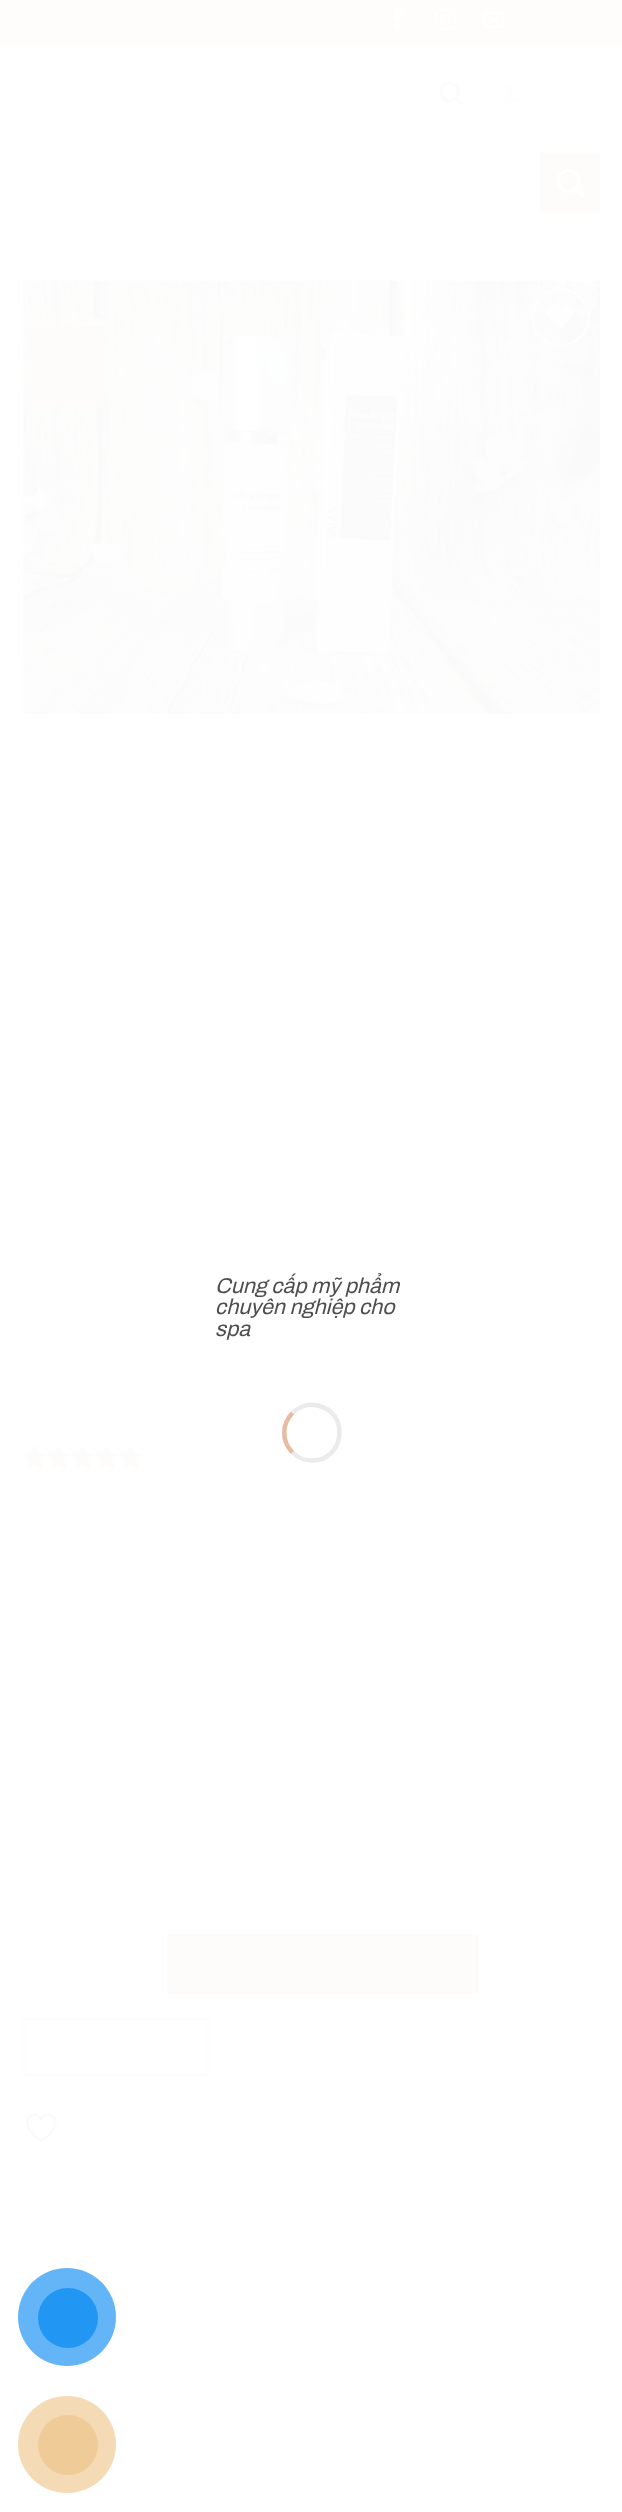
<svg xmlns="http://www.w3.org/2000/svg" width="622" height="2512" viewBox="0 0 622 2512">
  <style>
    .t1 { font: italic 600 21.5px Archivo; fill: #4e4e4e; }
  </style>
  <rect width="100%" height="100%" fill="#fff"/>
  <rect x="0" y="0" width="622" height="45" fill="#fefdfc"/>
  <image x="392" y="8" width="10" height="22" href="images/1.png"/>
  <image x="435" y="8" width="21" height="22" href="images/2.png"/>
  <image x="483" y="11" width="21" height="18" href="images/3.png"/>
  <image x="39" y="87" width="20" height="14" href="images/4.png"/>
  <image x="439" y="81" width="24" height="24" href="images/5.png"/>
  <image x="499" y="83" width="21" height="19" href="images/6.png"/>
  <rect x="541" y="154" width="58" height="58" fill="#fefcfb" stroke="#fefcfb" stroke-width="2"/>
  <image x="556" y="168" width="29" height="29" href="images/7.png"/>
  <image x="22" y="280" width="578" height="434" href="images/8.png"/>
  <circle cx="560.5" cy="317.5" r="28" fill="none" stroke="#fefefe" stroke-width="3"/>
  <image x="546" y="304" width="28" height="25" href="images/9.png"/>
  <rect x="27" y="326" width="77" height="81" fill="#fefcfb"/>
  <image x="45" y="1386" width="8" height="13" href="images/10.png"/>
  <image x="100" y="1386" width="8" height="13" href="images/11.png"/>
  <image x="23" y="1445" width="120" height="23" href="images/12.png"/>
  <image x="23" y="1445" width="120" height="23" href="images/13.png"/>
  <image x="23" y="1445" width="15" height="23" href="images/14.png"/>
  <rect x="168" y="1935" width="310" height="58" fill="#fefcfb" stroke="#fefcfb" stroke-width="2"/>
  <rect x="24" y="2019" width="184" height="56" fill="none" stroke="#fefdfc" stroke-width="2"/>
  <path d="M55.5 2122C55.5 2114 44 2112.5 41 2119C37.5 2110.5 21.5 2115.5 29.5 2129.5C32 2134 36.5 2138 41 2140.5C41 2140.5 55.5 2133 55.5 2122Z" fill="none" stroke="#fafafa" stroke-width="2.3" stroke-linecap="round" stroke-linejoin="round"/>
  <image x="45" y="2511" width="9" height="1" href="images/15.png"/>
  <image x="102" y="2511" width="7" height="1" href="images/16.png"/>
  <image x="261" y="2511" width="8" height="1" href="images/17.png"/>
  <image x="311" y="2511" width="20" height="1" href="images/18.png"/>
  <text x="215" y="1293" class="t1">Cung cấp mỹ phẩm</text>
  <text x="215" y="1314" class="t1">chuyên nghiệp cho</text>
  <text x="215" y="1336" class="t1">spa</text>
  <path d="M292.5 1413C299 1406.5 308.5 1403.5 317.5 1405.5C350 1412 345 1460.5 312 1460.5C304.5 1460.5 297.5 1457.5 292.5 1452.5" fill="none" stroke="#ebebeb" stroke-width="4.5"/>
  <path d="M292.5 1452.5C281.5 1441.5 281.5 1424 292.5 1413" fill="none" stroke="#e8bca1" stroke-width="4.5"/>
  <circle cx="67" cy="2317" r="49" fill="#2196f3b3"/>
  <circle cx="68" cy="2318" r="30" fill="#2196f3"/>
  <rect x="18" y="2396" width="98" height="97" rx="48.5" fill="#efcc97b3"/>
  <circle cx="68" cy="2445" r="30" fill="#efcc97"/>
</svg>
